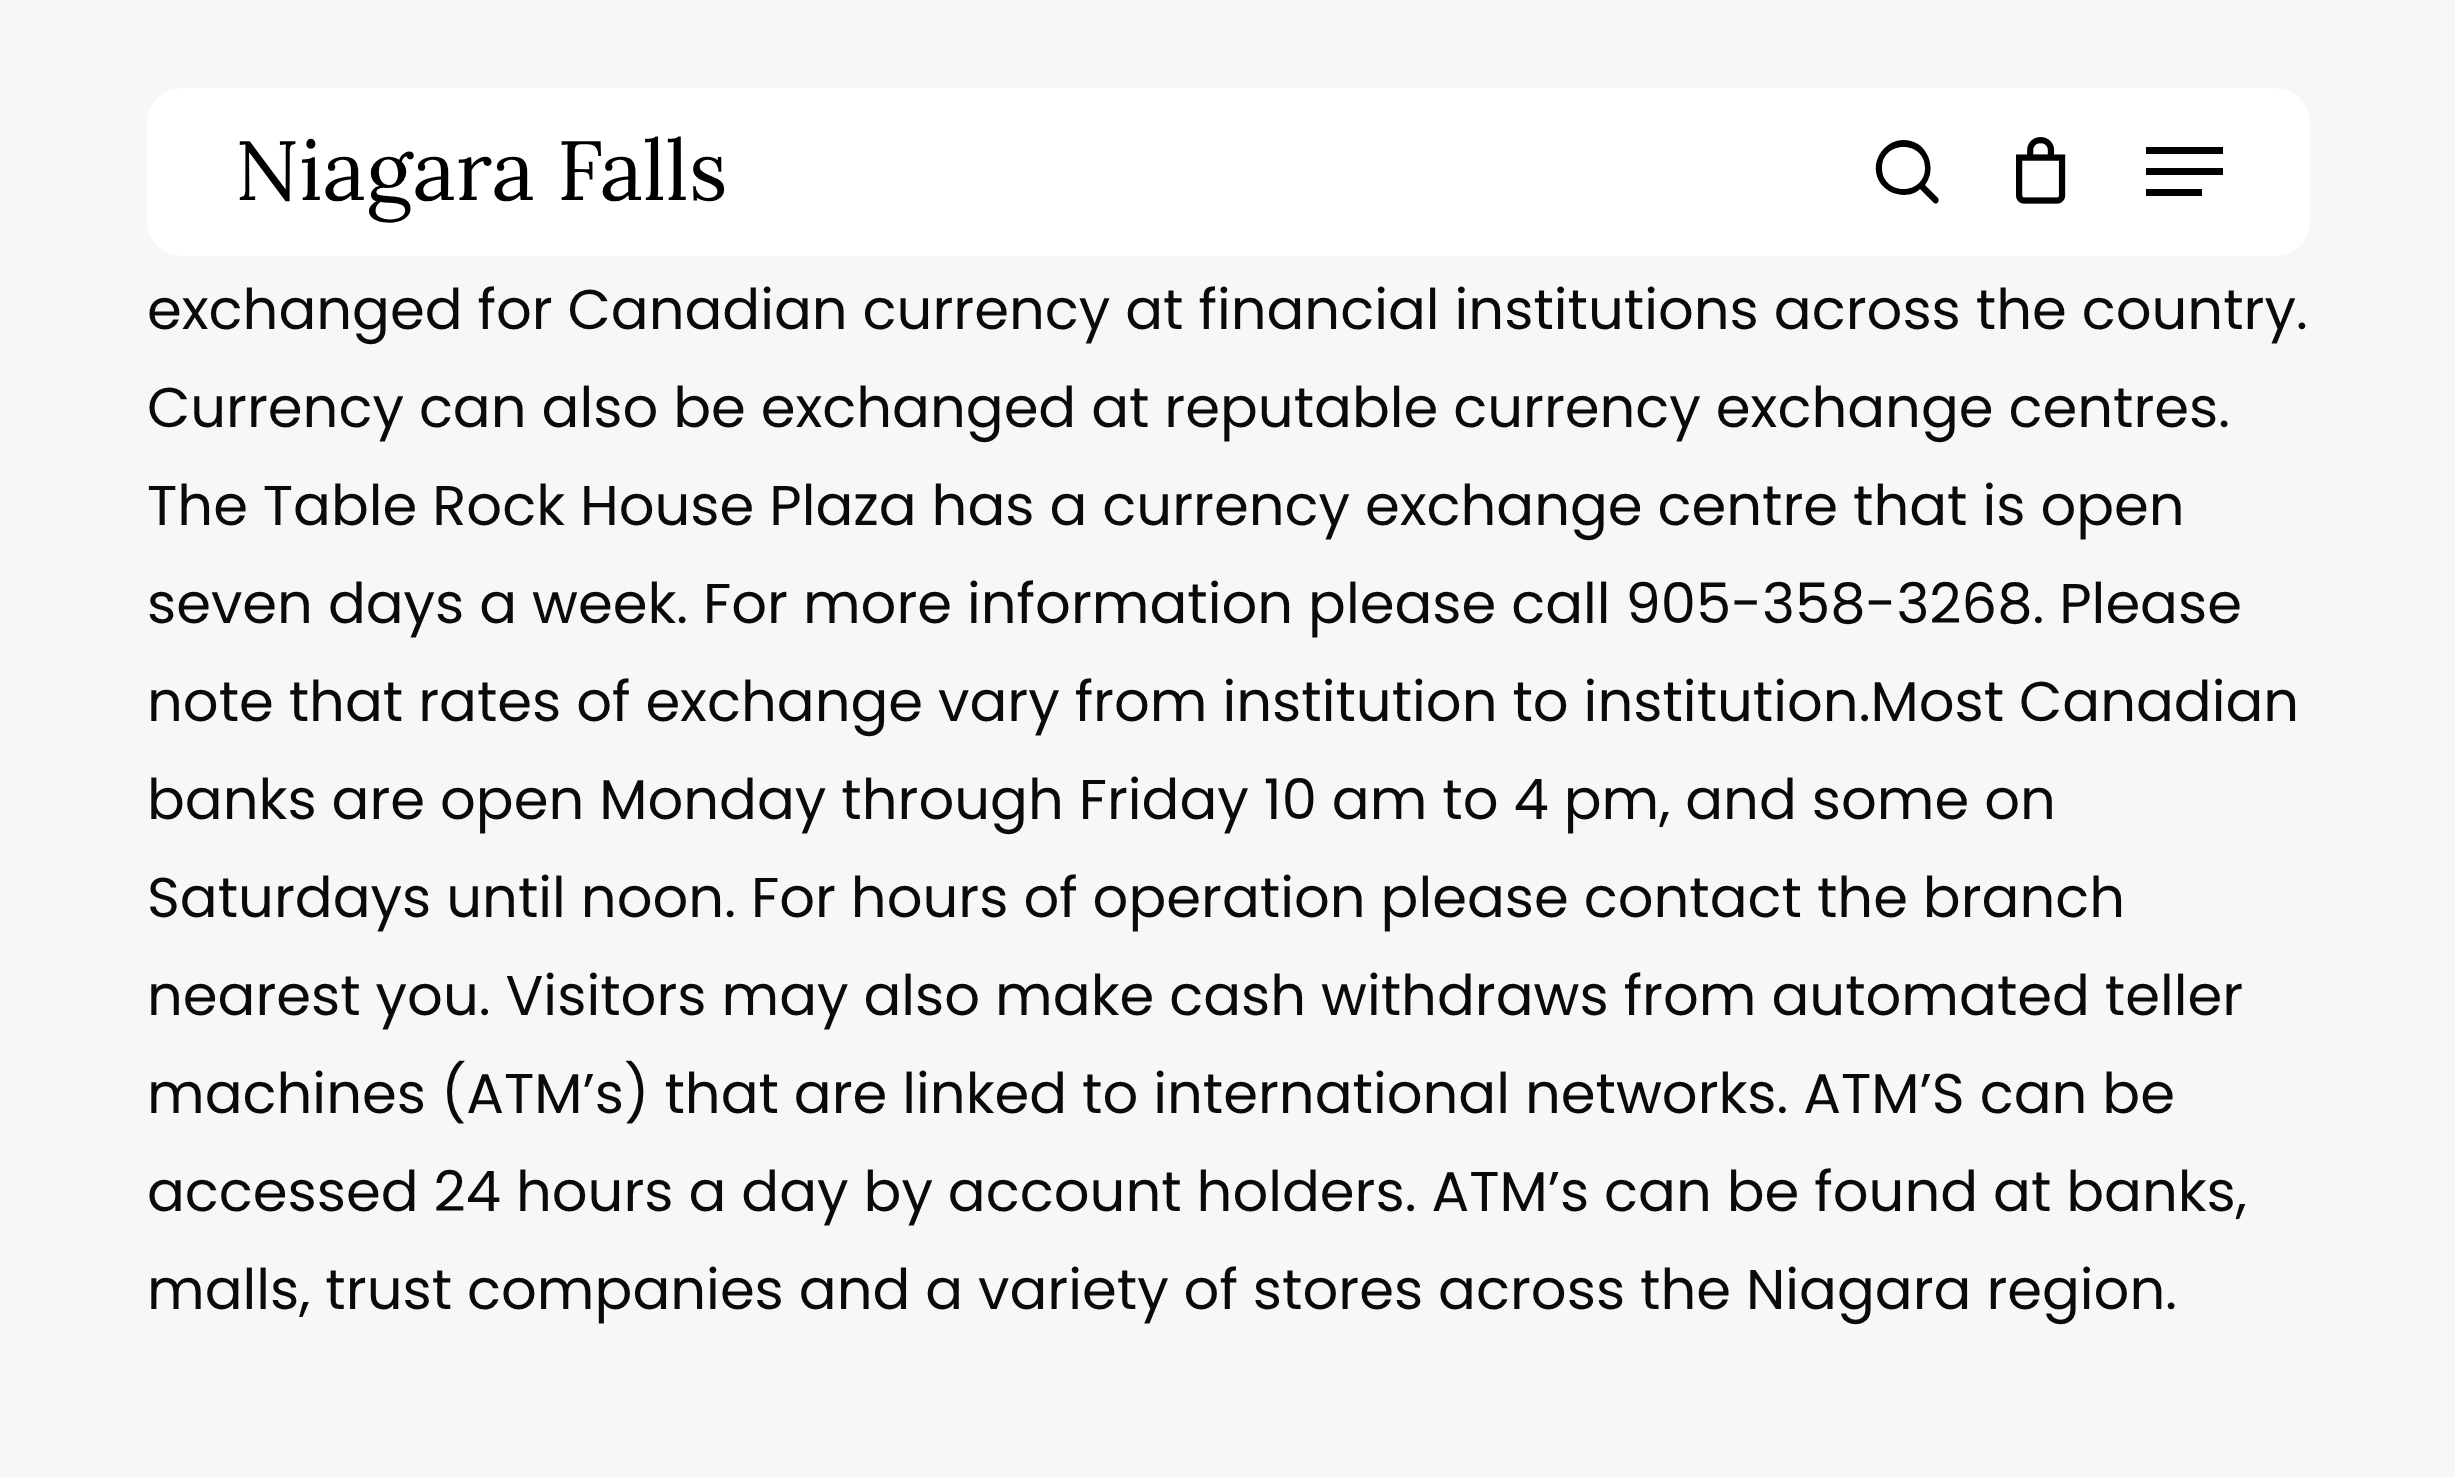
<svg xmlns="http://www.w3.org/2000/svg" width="2455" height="1477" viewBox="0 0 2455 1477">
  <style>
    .t1 { font: 84px Lora; fill: #000; }
    .t2 { font: 56px Poppins; fill: #0a0a0a; }
  </style>
  <rect width="100%" height="100%" fill="#f7f7f7"/>
  <rect x="147" y="88" width="2163" height="168" rx="35" fill="#fff"/>
  <text x="235" y="200" class="t1">Niagara Falls</text>
  <path d="M1938 198L1925 185C1935 172 1931 153 1918 144C1892 129 1864 160 1881 184C1885 189 1891 193 1897 194C1905 196 1914 195 1920 189L1934 203C1937 205 1940 201 1938 198ZM1882 168C1882 140 1925 140 1925 168C1925 196 1882 196 1882 168Z" fill="#000"/>
  <image x="2016" y="137" width="50" height="67" href="images/1.png"/>
  <rect x="2146" y="147" width="77" height="7" fill="#000"/>
  <rect x="2146" y="189" width="56" height="7" fill="#000"/>
  <rect x="2146" y="168" width="77" height="7" fill="#000"/>
  <text x="147" y="329" class="t2">exchanged for Canadian currency at financial institutions across the country.</text>
  <text x="147" y="427" class="t2">Currency can also be exchanged at reputable currency exchange centres.</text>
  <text x="147" y="525" class="t2">The Table Rock House Plaza has a currency exchange centre that is open</text>
  <text x="147" y="623" class="t2">seven days a week. For more information please call 905-358-3268. Please</text>
  <text x="147" y="721" class="t2">note that rates of exchange vary from institution to institution.Most Canadian</text>
  <text x="147" y="819" class="t2">banks are open Monday through Friday 10 am to 4 pm, and some on</text>
  <text x="147" y="917" class="t2">Saturdays until noon. For hours of operation please contact the branch</text>
  <text x="147" y="1015" class="t2">nearest you. Visitors may also make cash withdraws from automated teller</text>
  <text x="147" y="1113" class="t2">machines (ATM’s) that are linked to international networks. ATM’S can be</text>
  <text x="147" y="1211" class="t2">accessed 24 hours a day by account holders. ATM’s can be found at banks,</text>
  <text x="147" y="1309" class="t2">malls, trust companies and a variety of stores across the Niagara region.</text>
</svg>
